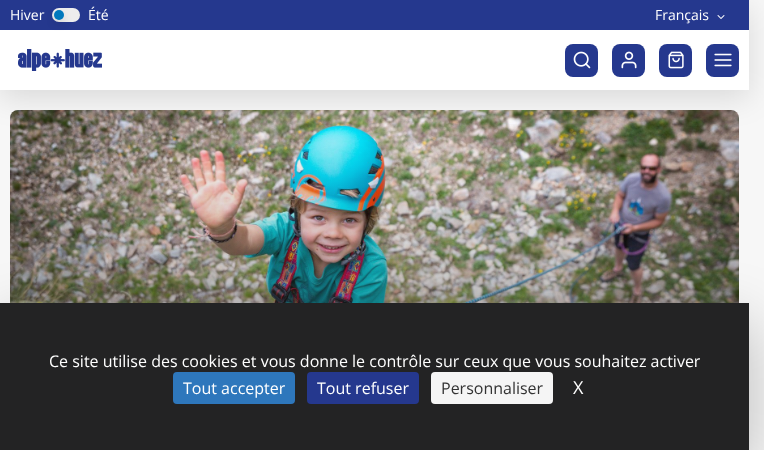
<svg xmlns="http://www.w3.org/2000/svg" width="764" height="450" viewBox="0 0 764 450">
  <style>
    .t1 { font: 14px Open Sans; fill: #fff; }
    .t2 { font: 16px Open Sans; fill: #fff; }
    .t3 { font: 16px Open Sans; fill: #333; }
    .t4 { font: 18px Open Sans; fill: #fff; }
  </style>
  <defs>
    <linearGradient id="g1" gradientUnits="userSpaceOnUse" x1="375" y1="110" x2="375" y2="373"><stop offset="0" stop-color="#383838" stop-opacity="0"/><stop offset="1" stop-color="#383838" stop-opacity="0.4"/></linearGradient>
  </defs>
  <rect width="100%" height="100%" fill="#f7f7f7"/>
  <image x="10" y="110" width="729" height="193" href="images/7.png"/>
  <rect x="10" y="124" width="729" height="179" fill="url(#g1)"/>
  <rect x="0" y="8" width="749" height="90" fill="#0000001f" filter="blur(15px)"/>
  <rect x="0" y="30" width="749" height="60" fill="#fff"/>
  <rect x="0" y="0" width="749" height="30" fill="#25388e"/>
  <text x="10" y="20" class="t1">Hiver</text>
  <rect x="52" y="8" width="28" height="14" rx="7" fill="#ededed"/>
  <rect x="54" y="14" width="10" height="10" rx="5" fill="#0000001f" filter="blur(4px)"/>
  <circle cx="59" cy="15" r="5" fill="#0078bd"/>
  <text x="88" y="20" class="t1">Été</text>
  <text x="655" y="20" class="t1">Français</text>
  <image x="717" y="15" width="8" height="4" href="images/1.png"/>
  <image x="18" y="49" width="84" height="22" href="images/2.png"/>
  <rect x="565" y="44" width="33" height="33" rx="8" fill="#25388e"/>
  <image x="573" y="51" width="18" height="18" href="images/3.png"/>
  <rect x="612" y="44" width="33" height="33" rx="8" fill="#25388e"/>
  <image x="621" y="51" width="16" height="18" href="images/4.png"/>
  <rect x="659" y="44" width="33" height="33" rx="8" fill="#25388e"/>
  <image x="668" y="51" width="16" height="18" href="images/5.png"/>
  <rect x="706" y="44" width="33" height="33" rx="8" fill="#25388e"/>
  <image x="714" y="53" width="18" height="14" href="images/6.png"/>
  <rect x="0" y="323" width="749" height="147" fill="#00000040" filter="blur(30px)"/>
  <rect x="0" y="303" width="749" height="147" fill="#232324"/>
  <text x="49" y="367" class="t2">Ce site utilise des cookies et vous donne le contrôle sur ceux que vous souhaitez activer</text>
  <rect x="173" y="372" width="122" height="32" rx="4" fill="#2e77bc"/>
  <text x="183" y="394" class="t2">Tout accepter</text>
  <rect x="307" y="372" width="112" height="32" rx="4" fill="#25388e"/>
  <text x="317" y="394" class="t2">Tout refuser</text>
  <rect x="431" y="372" width="122" height="32" rx="4" fill="#f5f5f5"/>
  <text x="441" y="394" class="t3">Personnaliser</text>
  <text x="573" y="394" class="t4">X</text>
</svg>
